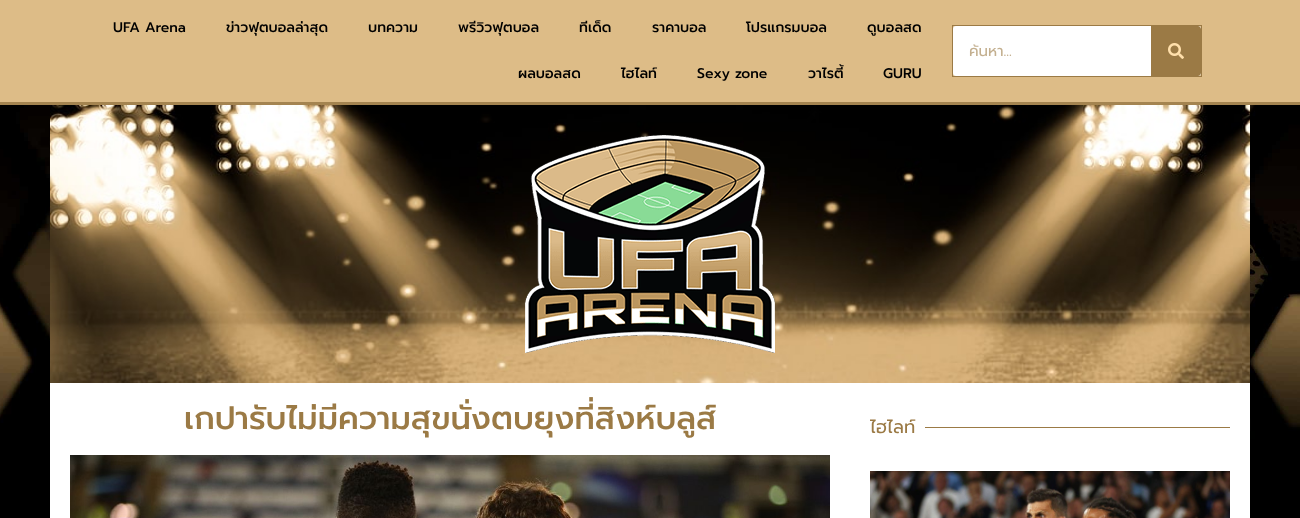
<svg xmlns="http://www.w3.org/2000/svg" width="1300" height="518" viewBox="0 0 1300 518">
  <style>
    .t1 { font: 500 14px Prompt; fill: #000; }
    .t2 { font: 15px Prompt; fill: #c3af8f; }
    .t3 { font: 500 32px Prompt; fill: #9b7a45; }
    .t4 { font: 18px Prompt; fill: #9b7a45; }
  </style>
  <defs>
    <clipPath id="clip1"><rect x="969" y="40" width="151" height="22"/></clipPath>
  </defs>
  <rect width="100%" height="100%" fill="#fff"/>
  <image x="0" y="105" width="1300" height="413" href="images/1.png"/>
  <rect x="0" y="0" width="1300" height="102" fill="#ddbc87"/>
  <rect x="0" y="102" width="1300" height="3" fill="#a48450"/>
  <text x="113" y="32" class="t1">UFA Arena</text>
  <text x="226" y="32" class="t1">ข่าวฟุตบอลล่าสุด</text>
  <text x="368" y="32" class="t1">บทความ</text>
  <text x="458" y="32" class="t1">พรีวิวฟุตบอล</text>
  <text x="579" y="32" class="t1">ทีเด็ด</text>
  <text x="652" y="32" class="t1">ราคาบอล</text>
  <text x="746" y="32" class="t1">โปรแกรมบอล</text>
  <text x="867" y="32" class="t1">ดูบอลสด</text>
  <text x="518" y="78" class="t1">ผลบอลสด</text>
  <text x="621" y="78" class="t1">ไฮไลท์</text>
  <text x="697" y="78" class="t1">Sexy zone</text>
  <text x="808" y="78" class="t1">วาไรตี้</text>
  <text x="883" y="78" class="t1">GURU</text>
  <rect x="952.5" y="25.5" width="249" height="51" fill="none" stroke="#9b7a45"/>
  <rect x="953" y="26" width="248" height="50" rx="3" fill="#fff"/>
  <g clip-path="url(#clip1)">
    <text x="969" y="56" class="t2">ค้นหา...</text>
  </g>
  <path d="M1151 26H1198C1199.5 26 1201 27.5 1201 29V73C1201 74.5 1199.5 76 1198 76H1151Z" fill="#9b7a45"/>
  <image x="1168" y="43" width="16" height="16" href="images/2.png"/>
  <image x="50" y="105" width="1200" height="278" href="images/3.png"/>
  <image x="525" y="135" width="250" height="218" href="images/4.png"/>
  <rect x="50" y="383" width="1200" height="135" fill="#fff"/>
  <text x="184" y="429" class="t3">เกปารับไม่มีความสุขนั่งตบยุงที่สิงห์บลูส์</text>
  <image x="70" y="455" width="760" height="63" href="images/5.png"/>
  <text x="870" y="433" class="t4">ไฮไลท์</text>
  <rect x="925" y="427" width="305" height="1" fill="#9b7a45"/>
  <image x="870" y="471" width="360" height="47" href="images/6.png"/>
</svg>
